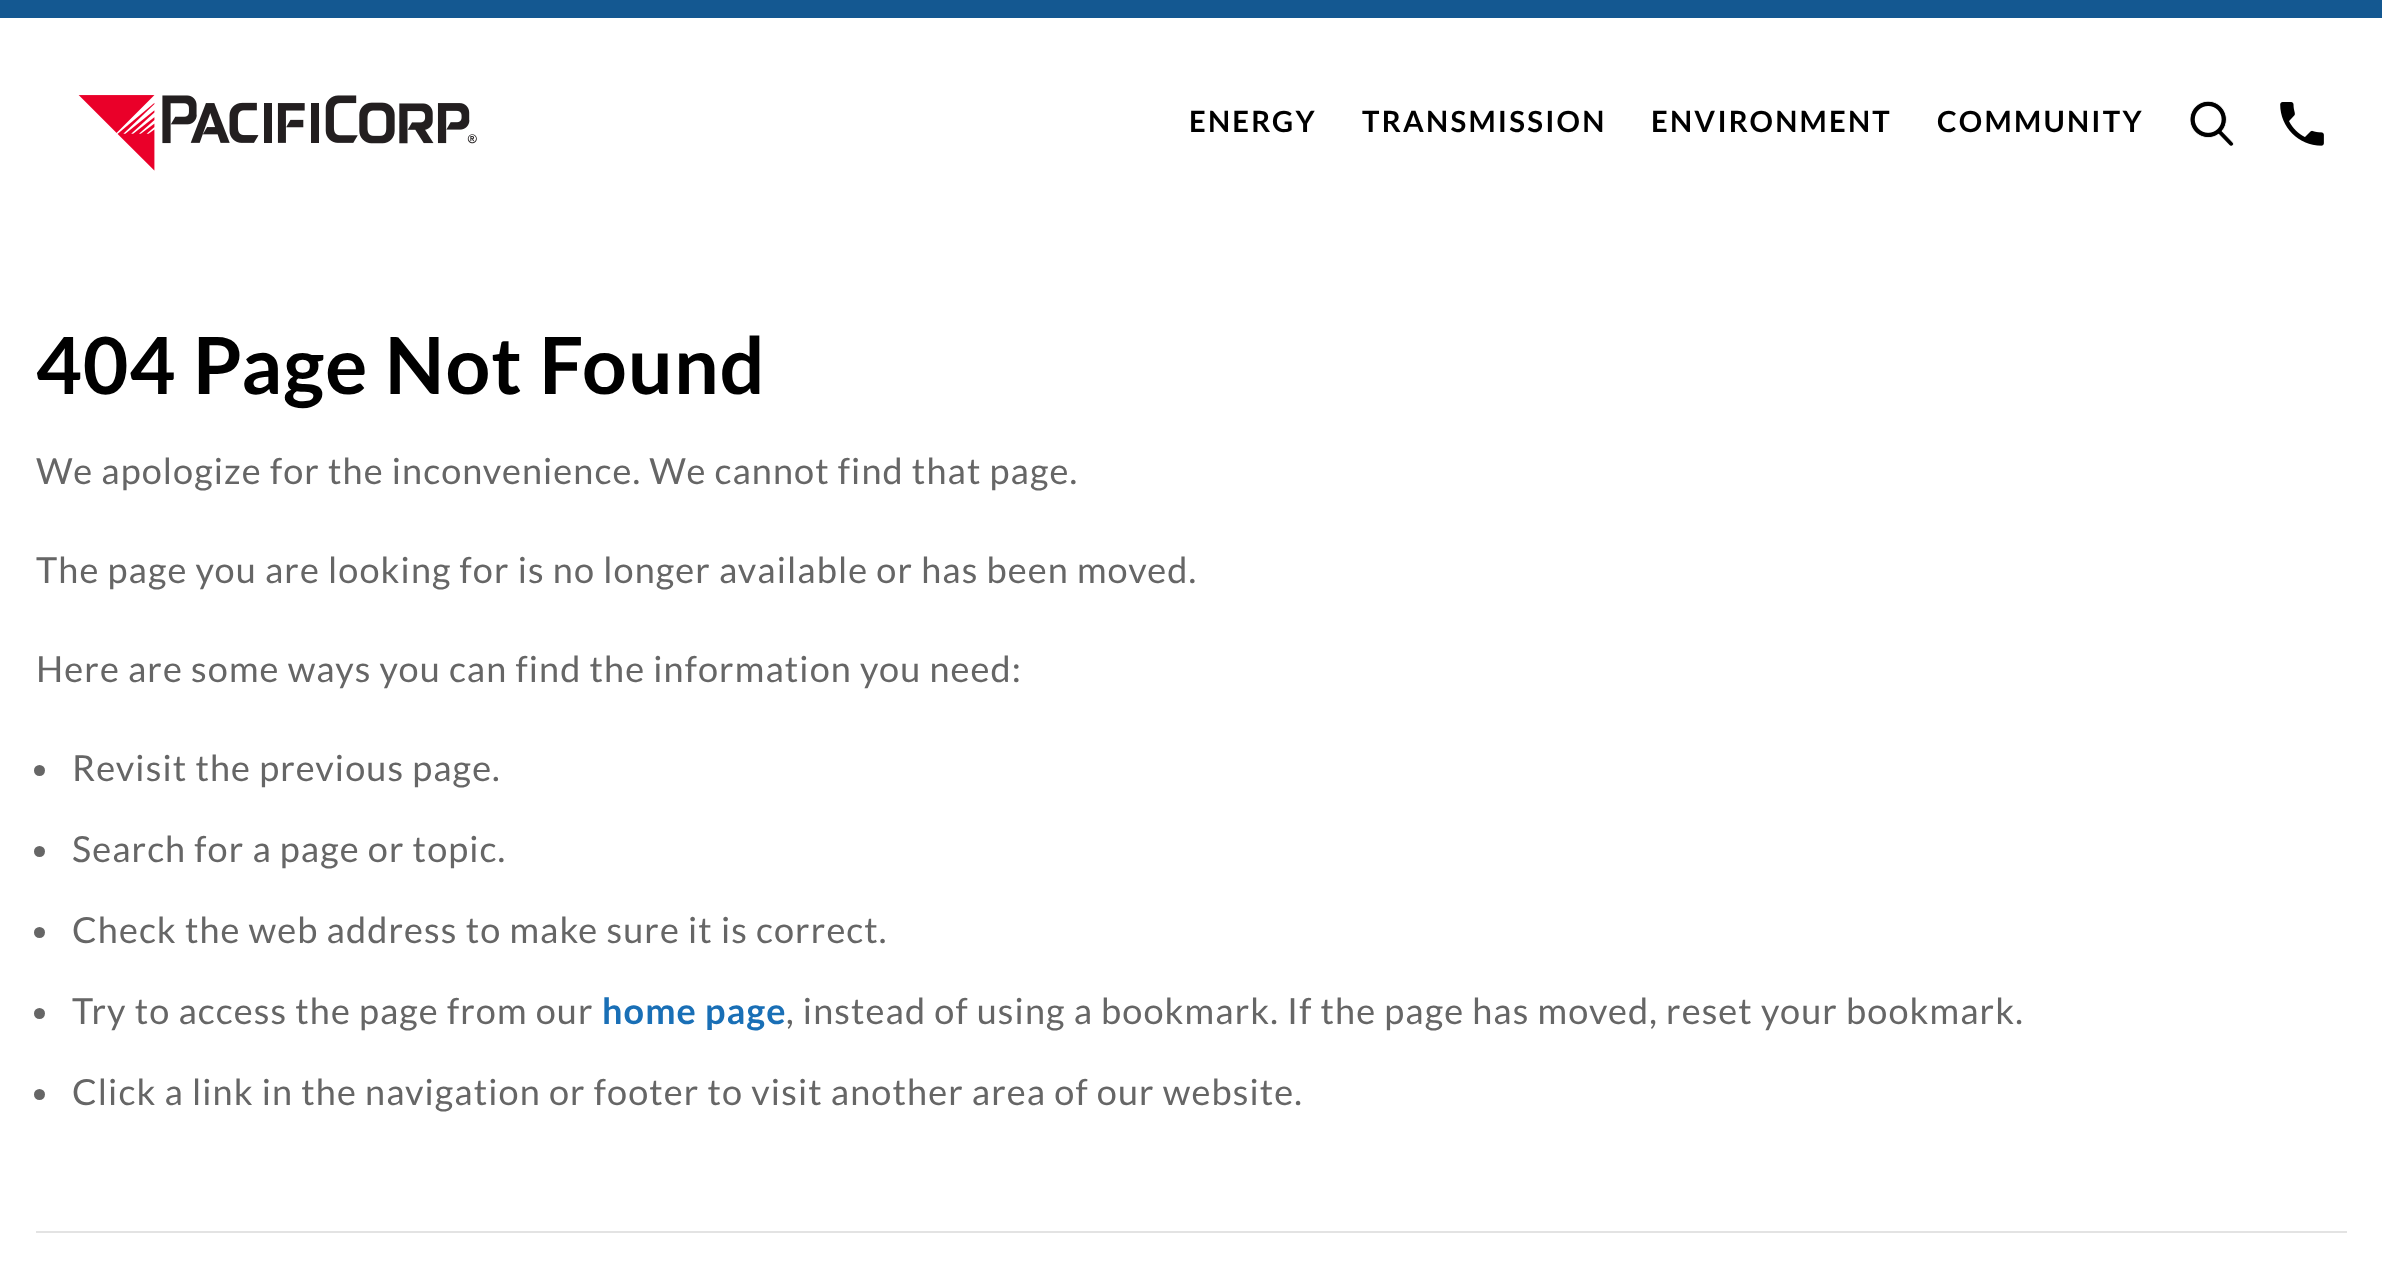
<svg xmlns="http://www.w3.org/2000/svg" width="2382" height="1267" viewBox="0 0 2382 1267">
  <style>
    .t1 { font: bold 29.25px Lato; letter-spacing: 2.25px; fill: #000; }
    .t2 { font: bold 78.75px Lato; letter-spacing: 1.12px; fill: #000; }
    .t3 { font: 36px Lato; letter-spacing: 1.12px; fill: #666; }
    .t4 { font: bold 36px Lato; letter-spacing: 1.12px; fill: #196fb6; }
  </style>
  <rect width="100%" height="100%" fill="#fff"/>
  <rect x="0" y="0" width="2382" height="18" fill="#145891"/>
  <image x="78" y="95" width="399" height="76" href="images/1.png"/>
  <text x="1189" y="132" class="t1">ENERGY</text>
  <text x="1362" y="132" class="t1">TRANSMISSION</text>
  <text x="1651" y="132" class="t1">ENVIRONMENT</text>
  <text x="1937" y="132" class="t1">COMMUNITY</text>
  <image x="2190" y="101" width="44" height="45" href="images/2.png"/>
  <image x="2280" y="102" width="44" height="44" href="images/3.png"/>
  <text x="36" y="394" class="t2">404 Page Not Found</text>
  <text x="36" y="484" class="t3">We apologize for the inconvenience. We cannot find that page.</text>
  <text x="36" y="583" class="t3">The page you are looking for is no longer available or has been moved.</text>
  <text x="36" y="682" class="t3">Here are some ways you can find the information you need:</text>
  <circle cx="39.5" cy="770.5" r="5.5" fill="#666"/>
  <text x="72" y="781" class="t3">Revisit the previous page.</text>
  <circle cx="39.5" cy="851.5" r="5.5" fill="#666"/>
  <text x="72" y="862" class="t3">Search for a page or topic.</text>
  <circle cx="39.5" cy="932.5" r="5.5" fill="#666"/>
  <text x="72" y="943" class="t3">Check the web address to make sure it is correct.</text>
  <circle cx="39.5" cy="1013.5" r="5.5" fill="#666"/>
  <text x="72" y="1024" class="t3">Try to access the page from our</text>
  <text x="602" y="1024" class="t4">home page</text>
  <text x="786" y="1024" class="t3">, instead of using a bookmark. If the page has moved, reset your bookmark.</text>
  <circle cx="39.5" cy="1094.5" r="5.5" fill="#666"/>
  <text x="72" y="1105" class="t3">Click a link in the navigation or footer to visit another area of our website.</text>
  <rect x="36" y="1231" width="2311" height="2" fill="#e3e3e3"/>
</svg>
